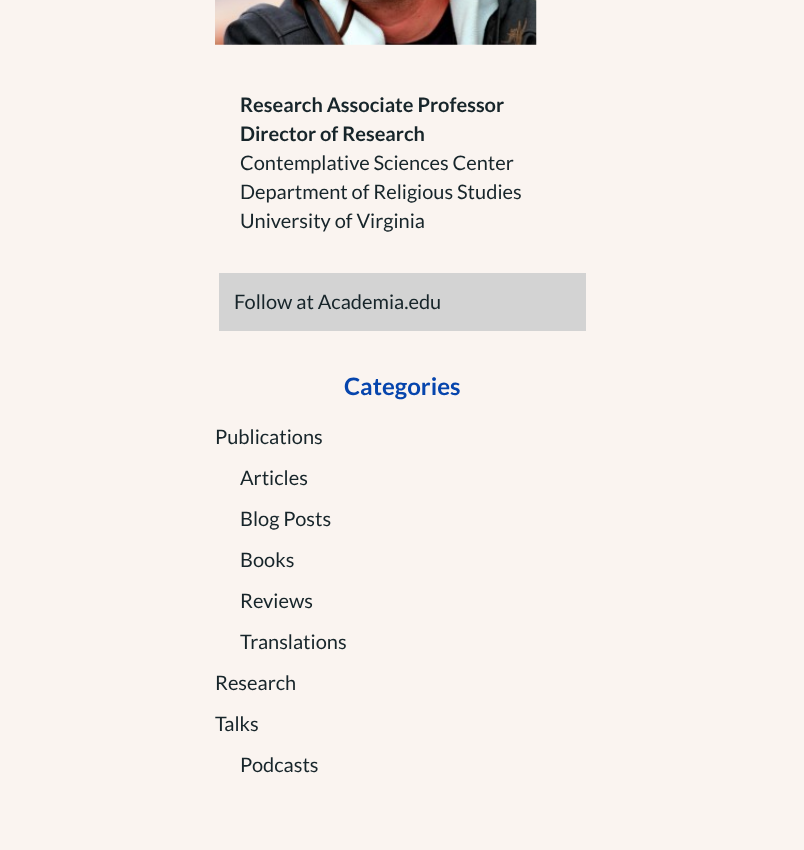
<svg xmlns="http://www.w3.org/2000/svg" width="804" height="850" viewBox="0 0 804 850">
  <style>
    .t1 { font: bold 20px Lato; fill: #17252a; }
    .t2 { font: 20px Lato; fill: #17252a; }
    .t3 { font: bold 24px Lato; fill: #0645ad; }
  </style>
  <rect width="100%" height="100%" fill="#faf4f0"/>
  <image x="215" y="0" width="322" height="45" href="images/1.png"/>
  <text x="240" y="112" class="t1">Research Associate Professor</text>
  <text x="240" y="141" class="t1">Director of Research</text>
  <text x="240" y="170" class="t2">Contemplative Sciences Center</text>
  <text x="240" y="199" class="t2">Department of Religious Studies</text>
  <text x="240" y="228" class="t2">University of Virginia</text>
  <rect x="219" y="273" width="367" height="58" fill="#d3d3d3"/>
  <text x="234" y="309" class="t2">Follow at Academia.edu</text>
  <text x="344" y="395" class="t3">Categories</text>
  <text x="215" y="444" class="t2">Publications</text>
  <text x="240" y="485" class="t2">Articles</text>
  <text x="240" y="526" class="t2">Blog Posts</text>
  <text x="240" y="567" class="t2">Books</text>
  <text x="240" y="608" class="t2">Reviews</text>
  <text x="240" y="649" class="t2">Translations</text>
  <text x="215" y="690" class="t2">Research</text>
  <text x="215" y="731" class="t2">Talks</text>
  <text x="240" y="772" class="t2">Podcasts</text>
</svg>
